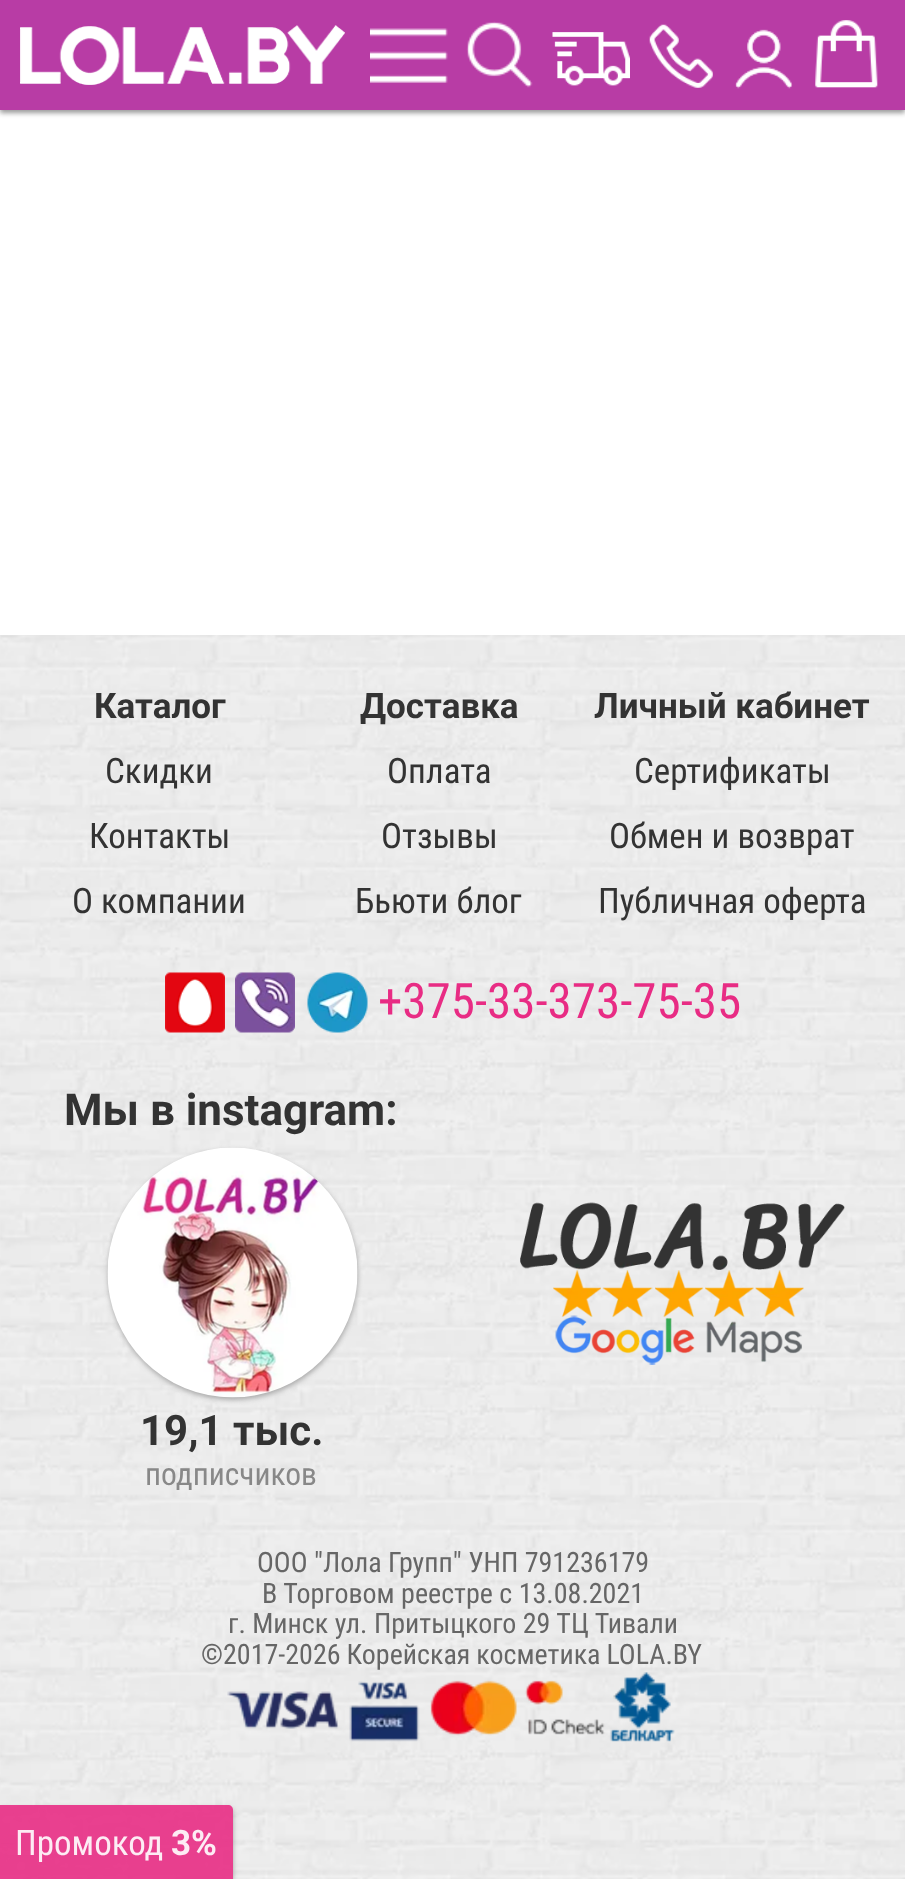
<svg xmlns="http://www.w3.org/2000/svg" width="905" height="1879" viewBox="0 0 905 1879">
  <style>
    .t1 { font: bold 35px Roboto; fill: #333; }
    .t2 { font: 35px Roboto Condensed; fill: #333; }
    .t3 { font: 49px Roboto Condensed; fill: #e82c84; }
    .t4 { font: bold 44px Roboto; fill: #333; }
    .t5 { font: bold 42px Roboto; fill: #333; }
    .t6 { font: 31.5px Roboto Condensed; fill: #888; }
    .t7 { font: 28px Roboto Condensed; fill: #666; }
    .t8 { font: 35px Roboto Condensed; fill: #fdecf4; }
    .t9 { font: bold 35px Roboto; fill: #fdecf4; }
  </style>
  <defs>
    <clipPath id="clip1"><path d="M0 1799H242V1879H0ZM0 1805H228C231 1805 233 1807 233 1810V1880H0Z" clip-rule="evenodd"/></clipPath>
  </defs>
  <rect width="100%" height="100%" fill="#fff"/>
  <rect x="0" y="3" width="905" height="110" fill="#999" filter="blur(2.5px)"/>
  <rect x="0" y="0" width="905" height="110" fill="#b83ca5"/>
  <image x="20" y="25" width="325" height="60" href="images/1.png"/>
  <image x="370" y="28" width="78" height="55" href="images/2.png"/>
  <image x="466" y="21" width="67" height="67" href="images/3.png"/>
  <image x="552" y="32" width="78" height="54" href="images/4.png"/>
  <image x="649" y="24" width="64" height="64" href="images/5.png"/>
  <image x="735" y="29" width="58" height="60" href="images/6.png"/>
  <image x="815" y="20" width="63" height="68" href="images/7.png"/>
  <image x="0" y="635" width="905" height="1244" href="images/8.png"/>
  <text x="94" y="718" class="t1">Каталог</text>
  <text x="105" y="783" class="t2">Скидки</text>
  <text x="89" y="848" class="t2">Контакты</text>
  <text x="72" y="913" class="t2">О компании</text>
  <text x="360" y="718" class="t1">Доставка</text>
  <text x="387" y="783" class="t2">Оплата</text>
  <text x="381" y="848" class="t2">Отзывы</text>
  <text x="355" y="913" class="t2">Бьюти блог</text>
  <text x="594" y="718" class="t1">Личный кабинет</text>
  <text x="634" y="783" class="t2">Сертификаты</text>
  <text x="609" y="848" class="t2">Обмен и возврат</text>
  <text x="598" y="913" class="t2">Публичная оферта</text>
  <image x="165" y="972" width="60" height="61" href="images/9.png"/>
  <image x="235" y="972" width="60" height="61" href="images/10.png"/>
  <image x="307" y="972" width="61" height="61" href="images/11.png"/>
  <text x="378" y="1018" class="t3">+375-33-373-75-35</text>
  <text x="64" y="1125" class="t4">Мы в instagram:</text>
  <rect x="108" y="1150" width="250" height="250" rx="125" fill="#aaa" filter="blur(2.5px)"/>
  <image x="107" y="1147" width="251" height="251" href="images/12.png"/>
  <text x="140" y="1445" class="t5">19,1 тыс.</text>
  <text x="145" y="1485" class="t6">подписчиков</text>
  <image x="520" y="1202" width="325" height="163" href="images/13.png"/>
  <text x="257" y="1572" class="t7">ООО "Лола Групп" УНП 791236179</text>
  <text x="262" y="1603" class="t7">В Торговом реестре c 13.08.2021</text>
  <text x="228" y="1633" class="t7">г. Минск ул. Притыцкого 29 ТЦ Тивали</text>
  <text x="201" y="1664" word-spacing="-0.5" class="t7">©2017-2026 Корейская косметика LOLA.BY</text>
  <image x="227" y="1672" width="448" height="70" href="images/14.png"/>
  <g clip-path="url(#clip1)">
    <rect x="0" y="1808" width="233" height="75" rx="5" fill="#999999e6" filter="blur(2.5px)"/>
  </g>
  <path d="M0 1805H228C231 1805 233 1807 233 1810V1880H0Z" fill="#e82c84e6"/>
  <text x="15" y="1855" class="t8">Промокод</text>
  <text x="171" y="1855" class="t9">3%</text>
</svg>
